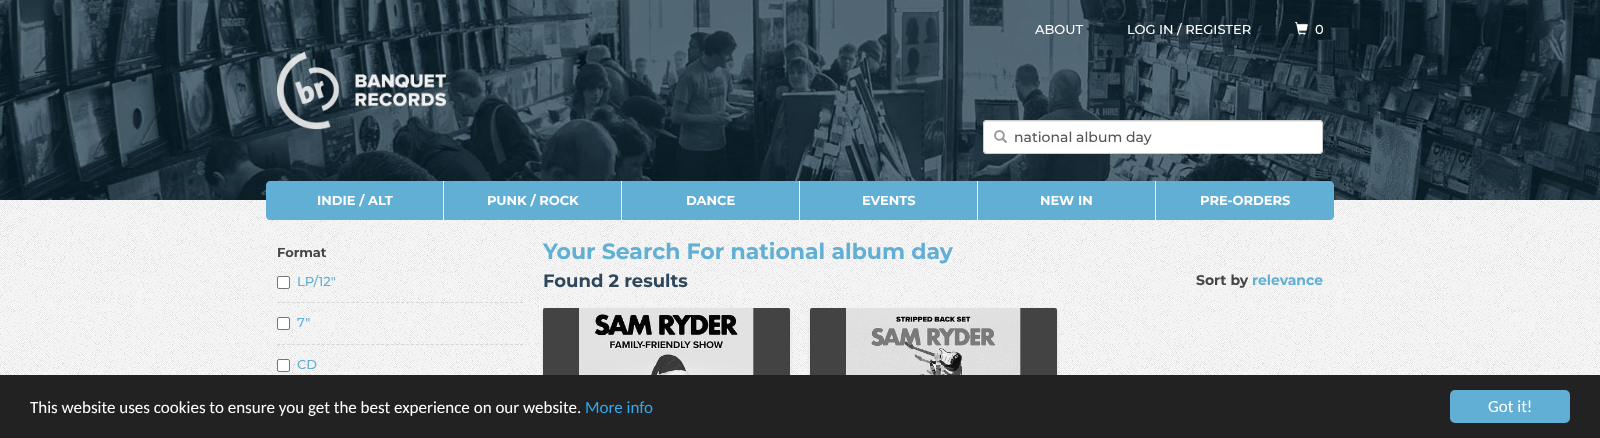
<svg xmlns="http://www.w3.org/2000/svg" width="1600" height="438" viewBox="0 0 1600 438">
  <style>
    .t1 { font: 500 13px Montserrat; fill: #fff; }
    .t2 { font: 500 14px Montserrat; fill: #555; }
    .t3 { font: bold 13px Montserrat; fill: #fff; }
    .t4 { font: bold 13px Montserrat; fill: #454545; }
    .t5 { font: 500 13px Montserrat; fill: #61afd5; }
    .t6 { font: bold 22px Montserrat; fill: #61afd5; }
    .t7 { font: bold 18px Montserrat; fill: #2e475b; }
    .t8 { font: bold 14px Montserrat; fill: #454545; }
    .t9 { font: bold 14px Montserrat; fill: #61afd5; }
    .t10 { font: 17px Carlito; fill: #fff; }
    .t11 { font: 17px Carlito; fill: #31a8f0; }
  </style>
  <rect width="100%" height="100%" fill="#f1f1f1"/>
  <image x="0" y="200" width="1600" height="175" href="images/1.png"/>
  <image x="0" y="0" width="1600" height="200" href="images/2.png"/>
  <text x="1035" y="34" class="t1">ABOUT</text>
  <text x="1127" y="34" class="t1">LOG IN / REGISTER</text>
  <image x="1295" y="22" width="13" height="13" href="images/3.png"/>
  <text x="1315" y="34" class="t1">0</text>
  <image x="277" y="52" width="169" height="78" href="images/4.png"/>
  <rect x="983" y="120" width="340" height="34" rx="4" fill="#fff"/>
  <path d="M987 122H1319C1321 122 1322 123 1322 125C1322 123 1321 121 1319 121H987C985 121 984 123 984 125C984 123 985 122 987 122Z" fill="#ececec"/>
  <rect x="983.5" y="120.5" width="339" height="33" rx="3.5" fill="none" stroke="#ccc"/>
  <image x="994" y="130" width="13" height="13" href="images/5.png"/>
  <text x="1014" y="142" class="t2">national album day</text>
  <rect x="443" y="181" width="1" height="39" fill="#fff"/>
  <path d="M270 181H443V220H270C268 220 266 218 266 216V185C266 183 268 181 270 181Z" fill="#61afd5"/>
  <text x="317" y="205" class="t3">INDIE / ALT</text>
  <rect x="621" y="181" width="1" height="39" fill="#fff"/>
  <rect x="444" y="181" width="177" height="39" fill="#61afd5"/>
  <text x="487" y="205" class="t3">PUNK / ROCK</text>
  <rect x="799" y="181" width="1" height="39" fill="#fff"/>
  <rect x="622" y="181" width="177" height="39" fill="#61afd5"/>
  <text x="686" y="205" class="t3">DANCE</text>
  <rect x="977" y="181" width="1" height="39" fill="#fff"/>
  <rect x="800" y="181" width="177" height="39" fill="#61afd5"/>
  <text x="862" y="205" class="t3">EVENTS</text>
  <rect x="1155" y="181" width="1" height="39" fill="#fff"/>
  <rect x="978" y="181" width="177" height="39" fill="#61afd5"/>
  <text x="1040" y="205" class="t3">NEW IN</text>
  <path d="M1156 181H1330C1332 181 1334 183 1334 185V216C1334 218 1332 220 1330 220H1156Z" fill="#61afd5"/>
  <text x="1200" y="205" class="t3">PRE-ORDERS</text>
  <text x="277" y="257" class="t4">Format</text>
  <rect x="277.5" y="276.5" width="12" height="12" rx="1.5" fill="#fff" stroke="#767676"/>
  <text x="297" y="286" class="t5">LP/12"</text>
  <path d="M277 302.5H523" fill="none" stroke="#d6d6d6" stroke-dasharray="3 1.96"/>
  <rect x="277.5" y="317.5" width="12" height="12" rx="1.5" fill="#fff" stroke="#767676"/>
  <text x="297" y="327" class="t5">7"</text>
  <path d="M277 344.5H523" fill="none" stroke="#d6d6d6" stroke-dasharray="3 1.96"/>
  <rect x="277.5" y="359.5" width="12" height="12" rx="1.5" fill="#fff" stroke="#767676"/>
  <text x="297" y="369" class="t5">CD</text>
  <text x="543" y="259" class="t6">Your Search For national album day</text>
  <text x="543" y="287" class="t7">Found 2 results</text>
  <text x="1196" y="285" class="t8">Sort by</text>
  <text x="1252" y="285" class="t9">relevance</text>
  <rect x="543" y="310" width="247" height="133" rx="2" fill="#d6d6d6" filter="blur(1px)"/>
  <rect x="543" y="310" width="247" height="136" rx="2" fill="#ebebeb" filter="blur(2px)"/>
  <rect x="543" y="308" width="247" height="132" rx="2" fill="#434343"/>
  <image x="579" y="308" width="175" height="67" href="images/6.png"/>
  <rect x="810" y="310" width="247" height="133" rx="2" fill="#d6d6d6" filter="blur(1px)"/>
  <rect x="810" y="310" width="247" height="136" rx="2" fill="#ebebeb" filter="blur(2px)"/>
  <rect x="810" y="308" width="247" height="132" rx="2" fill="#434343"/>
  <image x="846" y="308" width="175" height="67" href="images/7.png"/>
  <rect x="0" y="375" width="1600" height="63" fill="#222"/>
  <text x="30" y="413" class="t10">This website uses cookies to ensure you get the best experience on our website.</text>
  <text x="585" y="413" class="t11">More info</text>
  <rect x="1450" y="390" width="120" height="33" rx="5" fill="#61afd5"/>
  <text x="1488" y="412" class="t10">Got it!</text>
</svg>
